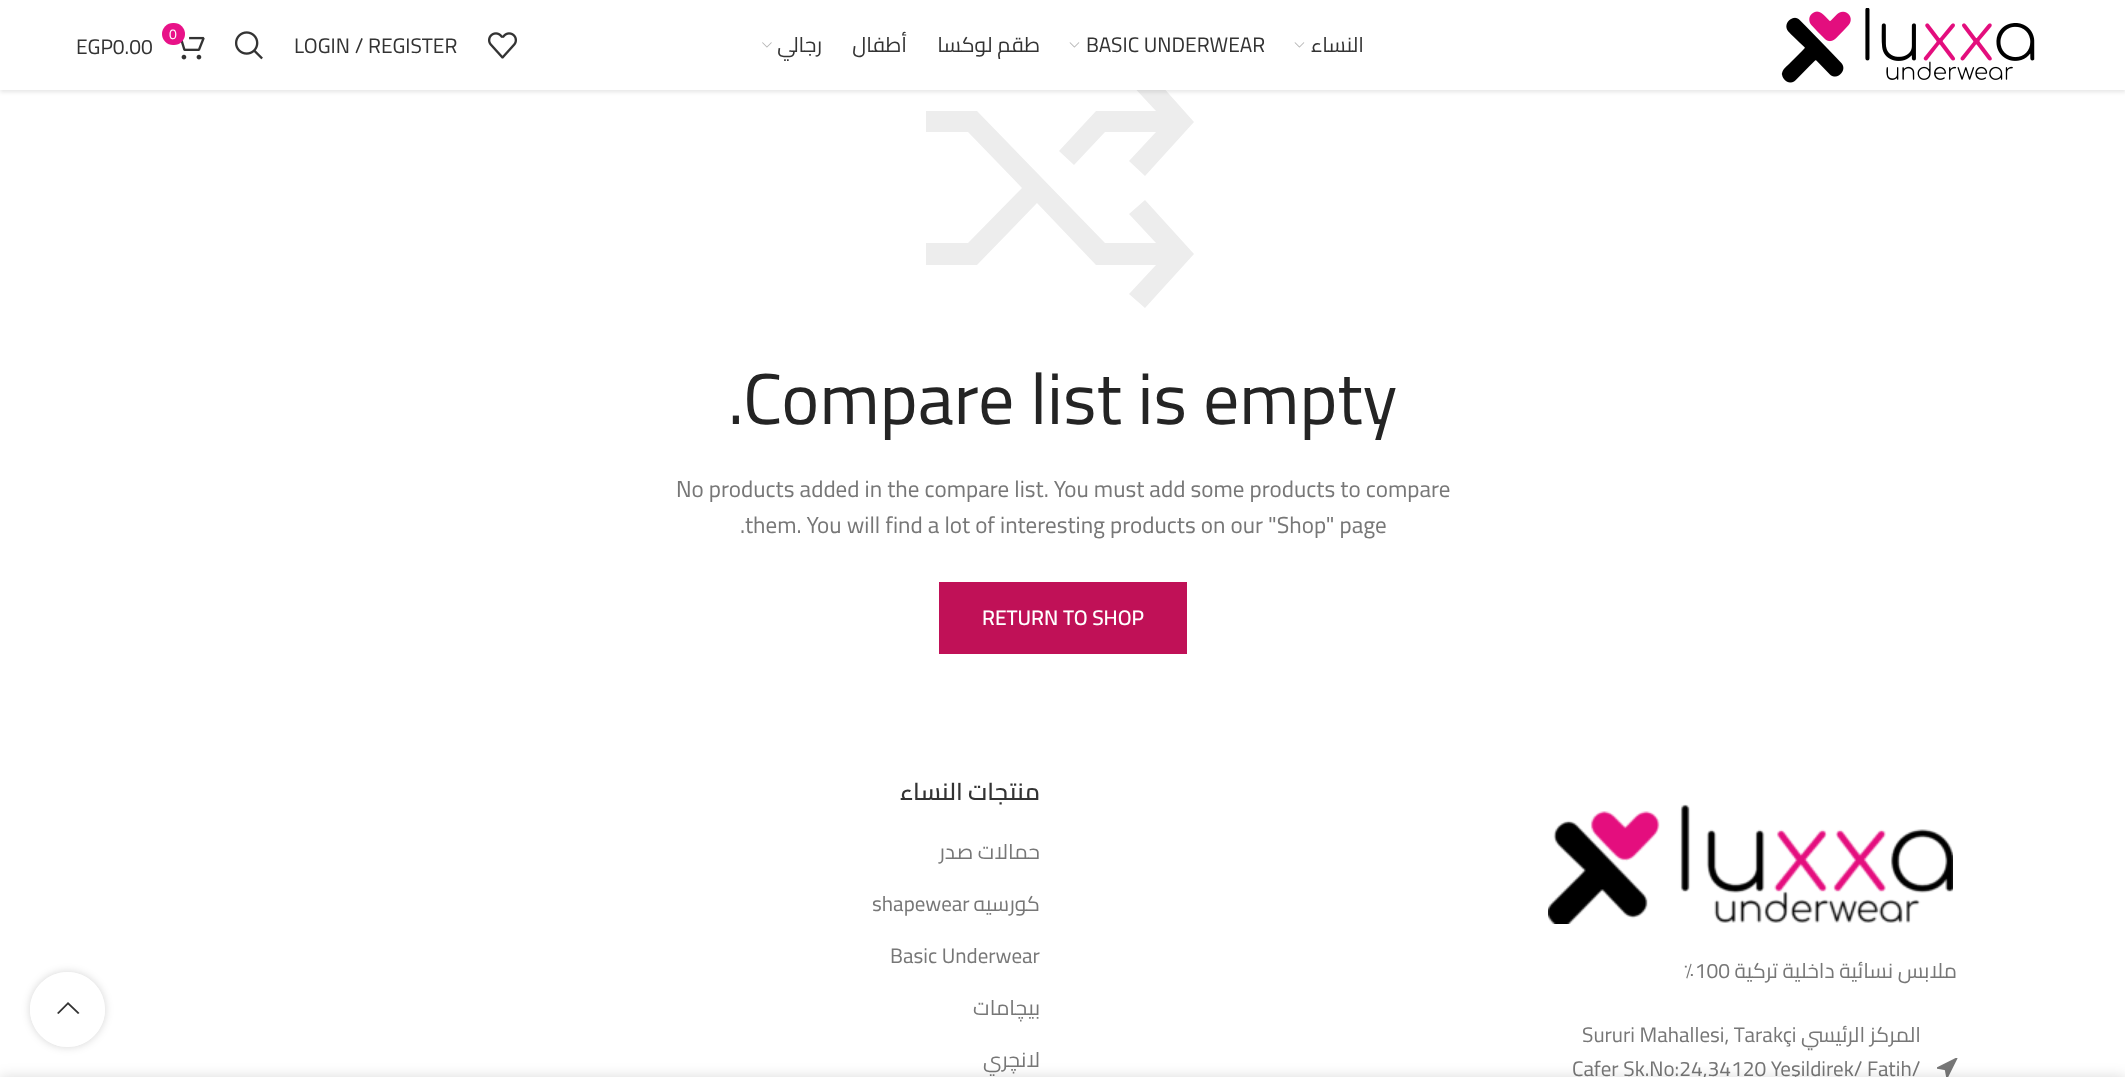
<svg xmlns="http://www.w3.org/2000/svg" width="2125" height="1077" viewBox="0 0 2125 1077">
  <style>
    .t1 { font: 14px Cairo; fill: #fff; }
    .t2 { font: 21px Cairo; fill: #333; }
    .t3 { font: 21px Cairo; direction: rtl; fill: #333; }
    .t4 { font: 72px Cairo; fill: #242424; }
    .t5 { font: 23.1px Cairo; fill: #777; }
    .t6 { font: 600 21px Cairo; fill: #fff; }
    .t7 { font: 600 24px Cairo; direction: rtl; fill: #333; }
    .t8 { font: 21px Cairo; direction: rtl; fill: #777; }
    .t9 { font: 21px Cairo; fill: #777; }
  </style>
  <defs>
    <clipPath id="clip1"><path d="M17 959H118V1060H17ZM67.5 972C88 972 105 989 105 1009.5C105 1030 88 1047 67.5 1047C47 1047 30 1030 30 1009.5C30 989 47 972 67.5 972Z" clip-rule="evenodd"/></clipPath>
  </defs>
  <rect width="100%" height="100%" fill="#fff"/>
  <g clip-path="url(#clip1)">
    <rect x="30" y="972" width="75" height="75" rx="37.5" fill="#0000002b" filter="blur(4px)"/>
  </g>
  <circle cx="67.5" cy="1009.5" r="37.5" fill="#ffffffe6"/>
  <path d="M78 1014L79.5 1013L68 1002L57 1013L58.5 1014L68 1004.5Z" fill="#333"/>
  <path d="M1145 67L1129 82L1156 111H1096L1059 151L1074 165L1105 132H1156L1129 161L1145 176L1194 122ZM926 132H968L1022 188L968 243H926V265H977L1037 203L1096 265H1156L1129 294L1145 308L1194 254L1145 200L1129 214L1156 243H1105L977 111H926Z" fill="#ededed"/>
  <rect x="0" y="2" width="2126" height="90" fill="#0000001a" filter="blur(2px)"/>
  <rect x="0" y="0" width="2125" height="90" fill="#fff"/>
  <image x="180" y="36" width="25" height="24" href="images/1.png"/>
  <rect x="162" y="23" width="23" height="22" rx="11" fill="#e81288"/>
  <text x="169" y="39" class="t1">0</text>
  <text x="76" y="54" class="t2">EGP0.00</text>
  <image x="235" y="31" width="28" height="29" href="images/2.png"/>
  <text x="294" y="53" class="t2">LOGIN / REGISTER</text>
  <image x="488" y="32" width="29" height="27" href="images/3.png"/>
  <image x="762" y="42" width="10" height="6" href="images/4.png"/>
  <text x="822" y="52" class="t3">رجالي</text>
  <text x="907" y="52" class="t3">أطفال</text>
  <text x="1040" y="52" class="t3">طقم لوكسا</text>
  <image x="1069" y="42" width="11" height="6" href="images/5.png"/>
  <text x="1086" y="52" class="t2">BASIC UNDERWEAR</text>
  <image x="1294" y="42" width="11" height="6" href="images/5.png"/>
  <text x="1364" y="52" class="t3">النساء</text>
  <image x="1781" y="8" width="254" height="75" href="images/6.png"/>
  <text x="728" y="424" class="t4">.Compare list is empty</text>
  <text x="676" y="497" class="t5">No products added in the compare list. You must add some products to compare</text>
  <text x="740" y="533" class="t5">.</text>
  <text x="745" y="533" class="t5">them. You will find a lot of interesting products on our "Shop" page</text>
  <rect x="939" y="582" width="248" height="72" fill="#c01157"/>
  <text x="982" y="625" class="t6">RETURN TO SHOP</text>
  <text x="1040" y="800" class="t7">منتجات النساء</text>
  <text x="1040" y="859" class="t8">حمالات صدر</text>
  <text x="872" y="911" class="t9">shapewear</text>
  <text x="1040" y="911" class="t8">كورسيه</text>
  <text x="890" y="963" class="t9">Basic Underwear</text>
  <text x="1040" y="1015" class="t8">بيچامات</text>
  <text x="1040" y="1067" class="t8">لانچري</text>
  <image x="1548" y="804" width="405" height="120" href="images/7.png"/>
  <text x="1683" y="978" class="t9">٪100</text>
  <text x="1957" y="978" class="t8">ملابس نسائية داخلية تركية</text>
  <text x="1582" y="1042" class="t9">Sururi Mahallesi, Tarakçi</text>
  <text x="1921" y="1042" class="t8">المركز الرئيسي</text>
  <text x="1572" y="1076" class="t9">Cafer Sk.No:24,34120 Yeşildirek/ Fatih/</text>
  <image x="1937" y="1058" width="21" height="19" href="images/8.png"/>
  <rect x="0" y="1077" width="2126" height="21" fill="#00000024" filter="blur(7px)"/>
</svg>
